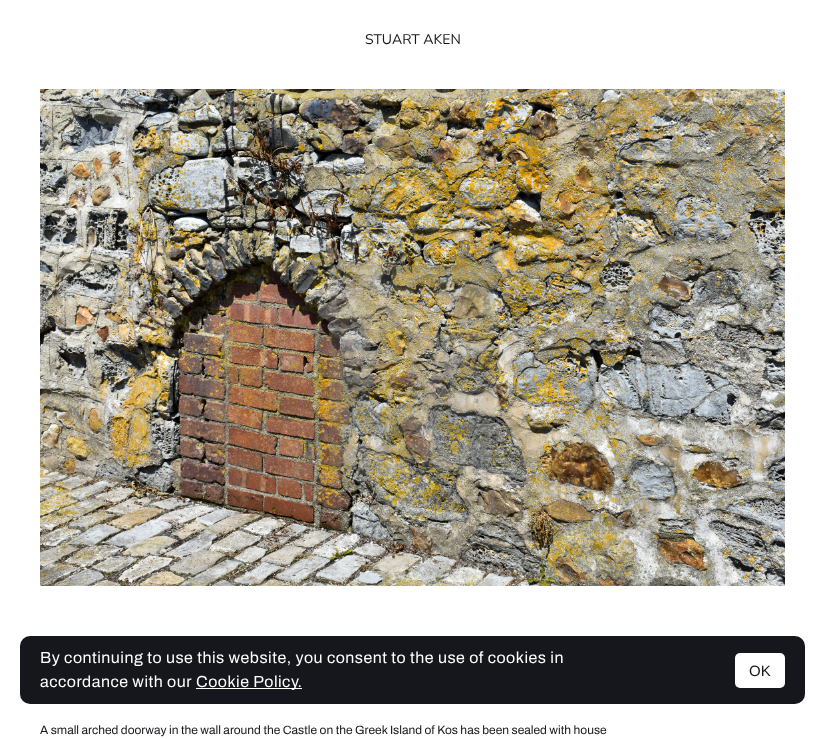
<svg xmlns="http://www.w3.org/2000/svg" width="825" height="739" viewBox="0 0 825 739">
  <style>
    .t1 { font: 200 14px Nunito; fill: #16161d; }
    .t2 { font: 12px Archivo; fill: #16161d; }
    .t3 { font: 16px Archivo; letter-spacing: 0.5px; fill: #fff; }
    .t4 { font: 15px Liberation Sans; fill: #16161d; }
  </style>
  <rect width="100%" height="100%" fill="#fff"/>
  <text x="365" y="44" class="t1">STUART AKEN</text>
  <image x="40" y="89" width="745" height="497" href="images/1.png"/>
  <text x="40" y="734" class="t2">A small arched doorway in the wall around the Castle on the Greek Island of Kos has been sealed with house</text>
  <rect x="20" y="636" width="785" height="68" rx="10" fill="#16161d"/>
  <text x="40" y="663" class="t3">By continuing to use this website, you consent to the use of cookies in</text>
  <text x="40" y="687" class="t3">accordance with our</text>
  <rect x="196" y="688" width="106" height="1" fill="#fff"/>
  <text x="196" y="687" class="t3">Cookie Policy.</text>
  <rect x="735" y="653" width="50" height="35" rx="5" fill="#fff"/>
  <text x="749" y="676" class="t4">OK</text>
</svg>
